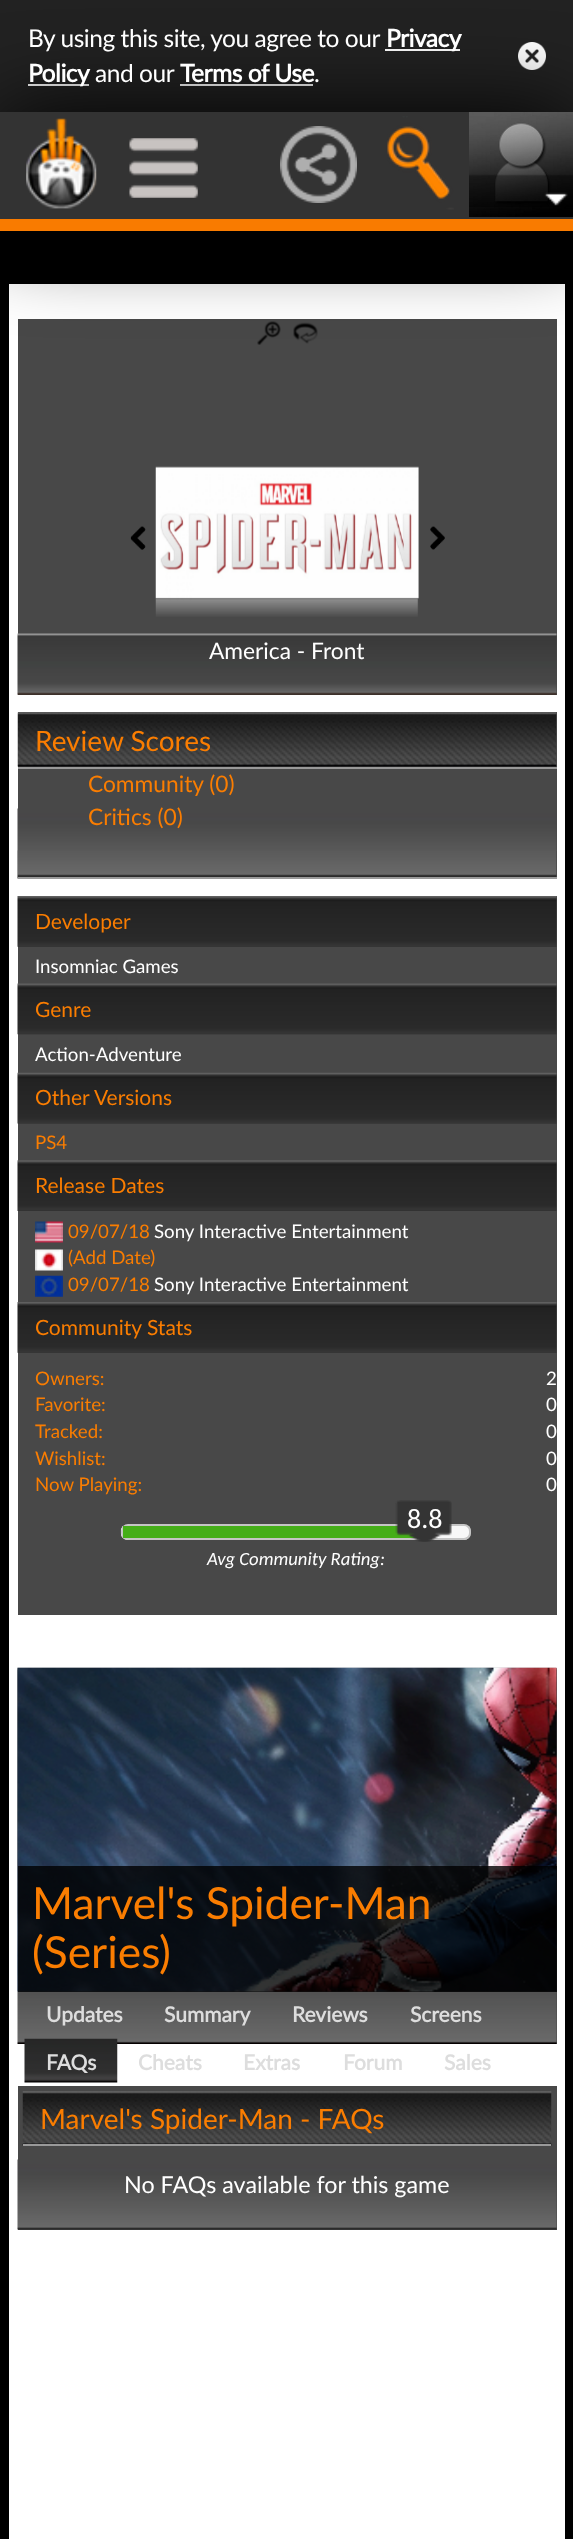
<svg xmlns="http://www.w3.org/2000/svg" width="573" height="2539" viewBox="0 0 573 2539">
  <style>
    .t1 { font: 24.5px Lato; letter-spacing: -0.45px; fill: #fff; }
    .t2 { font: bold 24.5px Lato; letter-spacing: -0.45px; fill: #fff; }
    .t3 { font: 22.75px Lato; fill: #fff; }
    .t4 { font: 28px Lato; fill: #fa7d01; }
    .t5 { font: 22.75px Lato; fill: #fa7d01; }
    .t6 { font: 21px Lato; fill: #fa7d01; }
    .t7 { font: 18.7px Lato; fill: #fff; }
    .t8 { font: 18.7px Lato; fill: #fa7d01; }
    .t9 { font: 28px Carlito; fill: #fff; }
    .t10 { font: italic 18.7px Carlito; fill: #fff; }
    .t11 { font: 44.25px Lato; fill: #fa7d01; }
    .t12 { font: bold 21px Lato; fill: #ddd; }
    .t13 { font: 23.3px Lato; fill: #fff; }
  </style>
  <rect width="100%" height="100%" fill="#000"/>
  <rect x="0" y="0" width="573" height="112" fill="#222"/>
  <rect x="385" y="49" width="75" height="2" fill="#fff"/>
  <image x="518" y="42" width="28" height="28" href="images/7.png"/>
  <rect x="28" y="84" width="61" height="2" fill="#fff"/>
  <rect x="180" y="84" width="133" height="2" fill="#fff"/>
  <rect x="9" y="284" width="556" height="2255" fill="#fff"/>
  <rect x="18" y="319" width="539" height="376" fill="#484848"/>
  <image x="257" y="321" width="24" height="24" href="images/11.png"/>
  <image x="293" y="322" width="25" height="22" href="images/12.png"/>
  <rect x="0" y="114" width="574" height="119" fill="#000" filter="blur(44px)"/>
  <rect x="0" y="112" width="573" height="107" fill="#333"/>
  <image x="26" y="118" width="71" height="91" href="images/1.png"/>
  <image x="129" y="138" width="69" height="60" href="images/2.png"/>
  <image x="280" y="126" width="77" height="77" href="images/3.png"/>
  <image x="387" y="116" width="67" height="94" href="images/4.png"/>
  <image x="469" y="112" width="104" height="105" href="images/5.png"/>
  <image x="469" y="174" width="104" height="33" href="images/6.png"/>
  <rect x="0" y="219" width="573" height="12" fill="#f97b00"/>
  <text x="28" y="47" class="t1">By using this site, you agree to our</text>
  <text x="386" y="47" class="t2">Privacy</text>
  <text x="28" y="82" class="t2">Policy</text>
  <text x="95" y="82" class="t1">and our</text>
  <text x="180" y="82" class="t2">Terms of Use</text>
  <text x="314" y="82" class="t1">.</text>
  <image x="17" y="633" width="540" height="62" href="images/8.png"/>
  <image x="130" y="526" width="16" height="24" href="images/9.png"/>
  <image x="430" y="526" width="15" height="24" href="images/10.png"/>
  <image x="155" y="466" width="264" height="133" href="images/13.png"/>
  <image x="155" y="598" width="264" height="19" href="images/14.png"/>
  <text x="209" y="659" class="t3">America - Front</text>
  <rect x="18" y="712" width="539" height="139" fill="#484848"/>
  <image x="17" y="808" width="540" height="71" href="images/15.png"/>
  <image x="17" y="712" width="540" height="55" href="images/16.png"/>
  <rect x="18" y="767" width="539" height="2" fill="#999"/>
  <text x="35" y="751" class="t4">Review Scores</text>
  <text x="88" y="792" class="t5">Community (0)</text>
  <text x="88" y="825" class="t5">Critics (0)</text>
  <rect x="18" y="851" width="539" height="26" fill="#484848"/>
  <image x="17" y="850" width="540" height="27" href="images/17.png"/>
  <rect x="18" y="877" width="539" height="2" fill="#999"/>
  <rect x="18" y="896" width="539" height="719" fill="#484848"/>
  <image x="17" y="896" width="540" height="51" href="images/18.png"/>
  <text x="35" y="929" class="t6">Developer</text>
  <text x="35" y="973" class="t7">Insomniac Games</text>
  <image x="17" y="983" width="540" height="52" href="images/19.png"/>
  <text x="35" y="1017" class="t6">Genre</text>
  <text x="35" y="1061" class="t7">Action-Adventure</text>
  <image x="17" y="1072" width="540" height="52" href="images/20.png"/>
  <text x="35" y="1105" class="t6">Other Versions</text>
  <text x="35" y="1149" class="t8">PS4</text>
  <image x="17" y="1160" width="540" height="51" href="images/21.png"/>
  <text x="35" y="1193" class="t6">Release Dates</text>
  <image x="35" y="1221" width="28" height="22" href="images/22.png"/>
  <text x="68" y="1238" class="t8">09/07/18</text>
  <text x="154" y="1238" class="t7">Sony Interactive Entertainment</text>
  <image x="35" y="1249" width="28" height="22" href="images/23.png"/>
  <text x="68" y="1264" class="t8">(Add Date)</text>
  <image x="35" y="1275" width="28" height="22" href="images/24.png"/>
  <text x="68" y="1291" class="t8">09/07/18</text>
  <text x="154" y="1291" class="t7">Sony Interactive Entertainment</text>
  <image x="17" y="1302" width="540" height="51" href="images/18.png"/>
  <text x="35" y="1335" class="t6">Community Stats</text>
  <text x="35" y="1385" class="t8">Owners:</text>
  <text x="546" y="1385" class="t7">2</text>
  <text x="35" y="1411" class="t8">Favorite:</text>
  <text x="546" y="1411" class="t7">0</text>
  <text x="35" y="1438" class="t8">Tracked:</text>
  <text x="546" y="1438" class="t7">0</text>
  <text x="35" y="1465" class="t8">Wishlist:</text>
  <text x="546" y="1465" class="t7">0</text>
  <text x="35" y="1491" class="t8">Now Playing:</text>
  <text x="546" y="1491" class="t7">0</text>
  <image x="120" y="1526" width="351" height="14" href="images/25.png"/>
  <rect x="122" y="1525" width="348" height="14" rx="6" fill="none" stroke="#c5c5c5" stroke-width="2"/>
  <rect x="123" y="1526" width="294" height="12" fill="#45ae18"/>
  <image x="395" y="1500" width="57" height="42" href="images/26.png"/>
  <text x="407" y="1528" class="t9">8.8</text>
  <text x="207" y="1565" class="t10">Avg Community Rating:</text>
  <rect x="556" y="1668" width="1" height="376" fill="#484848"/>
  <image x="17" y="1667" width="540" height="377" href="images/27.png"/>
  <image x="17" y="1667" width="540" height="325" href="images/28.png"/>
  <rect x="18" y="1866" width="539" height="126" fill="#000000cc"/>
  <text x="32" y="1919" class="t11">Marvel's Spider-Man</text>
  <text x="32" y="1968" class="t11">(Series</text>
  <text x="159" y="1968" class="t11">)</text>
  <text x="46" y="2022" class="t12">Updates</text>
  <text x="164" y="2022" class="t12">Summary</text>
  <text x="292" y="2022" class="t12">Reviews</text>
  <text x="410" y="2022" class="t12">Screens</text>
  <image x="24" y="2038" width="94" height="45" href="images/29.png"/>
  <text x="46" y="2070" class="t12">FAQs</text>
  <text x="138" y="2070" class="t12">Cheats</text>
  <text x="243" y="2070" class="t12">Extras</text>
  <text x="343" y="2070" class="t12">Forum</text>
  <text x="444" y="2070" class="t12">Sales</text>
  <rect x="18" y="2086" width="539" height="144" fill="#484848"/>
  <image x="17" y="2159" width="540" height="71" href="images/15.png"/>
  <image x="22" y="2091" width="530" height="55" href="images/30.png"/>
  <rect x="23" y="2144" width="528" height="2" fill="#999"/>
  <text x="40" y="2129" class="t4">Marvel's Spider-Man - FAQs</text>
  <text x="124" y="2193" class="t13">No FAQs available for this game</text>
</svg>
